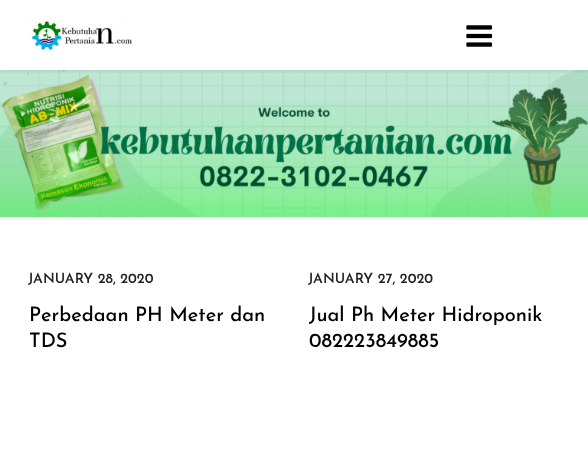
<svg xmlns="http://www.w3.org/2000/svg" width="588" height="462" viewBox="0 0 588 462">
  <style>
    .t1 { font: 600 14px Josefin Sans; fill: #222; }
    .t2 { font: 500 20px Josefin Sans; fill: #000; }
  </style>
  <defs>
    <clipPath id="clip1"><rect x="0" y="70" width="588" height="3"/></clipPath>
  </defs>
  <rect width="100%" height="100%" fill="#fff"/>
  <image x="0" y="70" width="588" height="147" href="images/3.png"/>
  <g clip-path="url(#clip1)">
    <rect x="0" y="2" width="588" height="70" fill="#00000012" filter="blur(1.5px)"/>
  </g>
  <image x="29" y="20" width="104" height="31" href="images/1.png"/>
  <image x="466" y="25" width="27" height="22" href="images/2.png"/>
  <text x="28" y="283" class="t1">JANUARY 28, 2020</text>
  <text x="29" y="321" class="t2">Perbedaan PH Meter dan</text>
  <text x="29" y="347" class="t2">TDS</text>
  <text x="308" y="283" class="t1">JANUARY 27, 2020</text>
  <text x="309" y="321" class="t2">Jual Ph Meter Hidroponik</text>
  <text x="309" y="347" class="t2">082223849885</text>
</svg>
